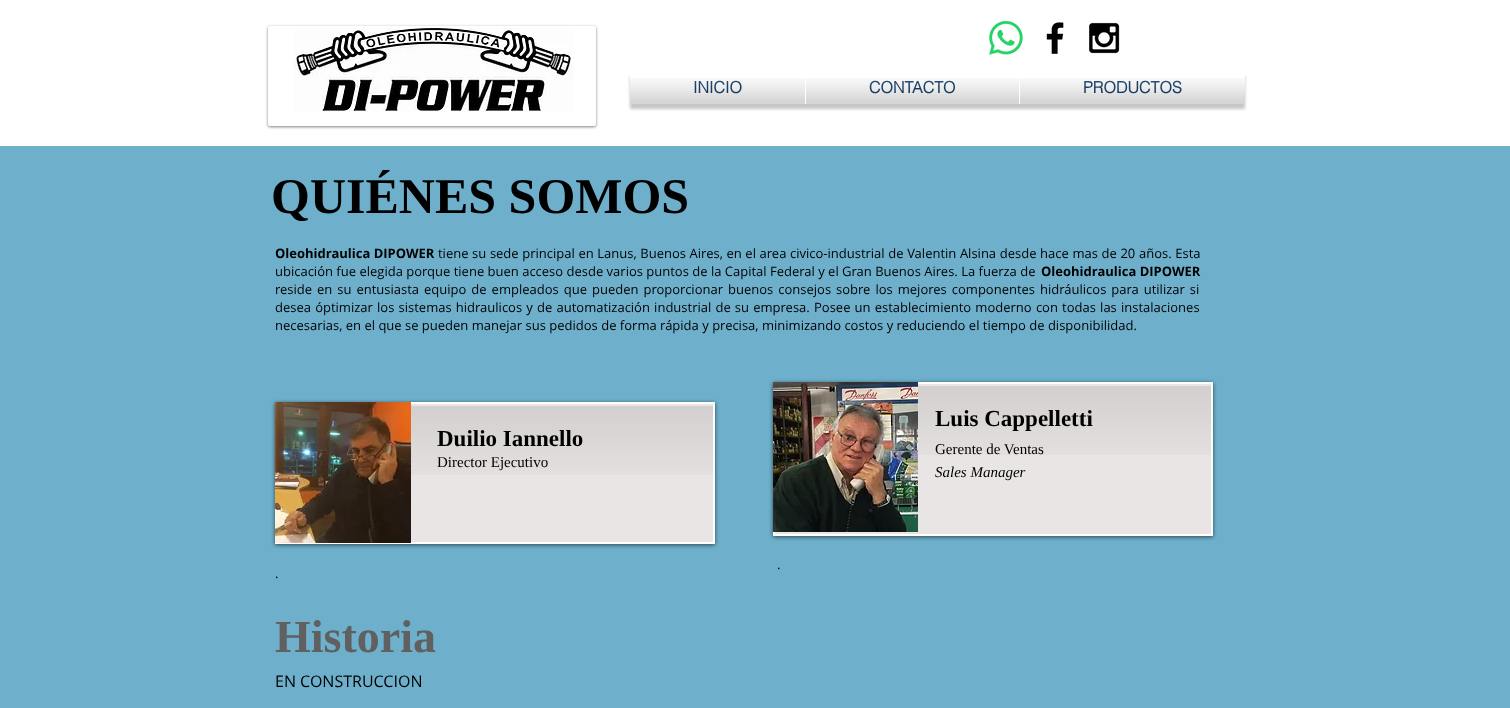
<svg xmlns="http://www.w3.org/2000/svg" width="1510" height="708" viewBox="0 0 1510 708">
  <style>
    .t1 { font: bold 16px helvetica; fill: #002e5d; }
    .t2 { font: bold 50px Liberation Serif; fill: #000; }
    .t3 { font: bold 13px Open Sans; fill: #000; }
    .t4 { font: 13px Open Sans; fill: #000; }
    .t5 { font: bold 23px Liberation Serif; fill: #000; }
    .t6 { font: 15px Liberation Serif; fill: #000; }
    .t7 { font: italic 15px Liberation Serif; fill: #000; }
    .t8 { font: bold 46px Liberation Serif; fill: #606060; }
    .t9 { font: 16px Open Sans; fill: #000; }
  </style>
  <rect width="100%" height="100%" fill="#6eb0cc"/>
  <rect x="0" y="0" width="1510" height="146" fill="#fff"/>
  <rect x="268" y="27" width="328" height="100" rx="2" fill="#00000080" filter="blur(1.5px)"/>
  <rect x="269" y="27" width="326" height="98" rx="1" fill="#fff" stroke="#fff" stroke-width="2"/>
  <image x="294" y="28" width="280" height="84" href="images/1.png"/>
  <image x="989" y="20" width="34" height="35" href="images/2.png"/>
  <image x="1046" y="22" width="18" height="32" href="images/3.png"/>
  <image x="1089" y="22" width="31" height="32" href="images/4.png"/>
  <rect x="630" y="76" width="615" height="33" fill="#a29e9e99" filter="blur(1.5px)"/>
  <rect x="630" y="73" width="615" height="31" fill="#fff"/>
  <text x="693" y="93" class="t1">INICIO</text>
  <image x="694" y="81" width="47" height="13" href="images/5.png"/>
  <image x="630" y="78" width="175" height="26" href="images/6.png"/>
  <text x="869" y="93" class="t1">CONTACTO</text>
  <image x="870" y="81" width="85" height="13" href="images/7.png"/>
  <image x="806" y="78" width="213" height="26" href="images/8.png"/>
  <text x="1083" y="93" class="t1">PRODUCTOS</text>
  <image x="1084" y="81" width="97" height="13" href="images/9.png"/>
  <image x="1020" y="78" width="225" height="26" href="images/10.png"/>
  <text x="271" y="213" class="t2">QUIÉNES SOMOS</text>
  <text x="275" y="258" class="t3">Oleohidraulica DIPOWER</text>
  <text x="438" y="258" word-spacing="0.25" class="t4">tiene su sede principal en Lanus, Buenos Aires, en el area civico-industrial de Valentin Alsina desde hace mas de 20 años. Esta</text>
  <text x="275" y="276" class="t4">ubicación fue elegida porque tiene buen acceso desde varios puntos de la Capital Federal y el Gran Buenos Aires. La fuerza de</text>
  <text x="1041" y="276" class="t3">Oleohidraulica DIPOWER</text>
  <text x="275" y="294" word-spacing="1.6" class="t4">reside en su entusiasta equipo de empleados que pueden proporcionar buenos consejos sobre los mejores componentes hidráulicos para utilizar si</text>
  <text x="275" y="312" word-spacing="0.8" class="t4">desea óptimizar los sistemas hidraulicos y de automatización industrial de su empresa. Posee un establecimiento moderno con todas las instalaciones</text>
  <text x="275" y="330" class="t4">necesarias, en el que se pueden manejar sus pedidos de forma rápida y precisa, minimizando costos y reduciendo el tiempo de disponibilidad.</text>
  <rect x="275" y="403" width="440" height="142" fill="#00000099" filter="blur(2px)"/>
  <rect x="411" y="404" width="302" height="138" fill="#eae5e5"/>
  <image x="411" y="406" width="302" height="69" href="images/11.png"/>
  <rect x="276" y="403" width="438" height="140" fill="none" stroke="#fff" stroke-width="2"/>
  <image x="275" y="402" width="136" height="141" href="images/12.png"/>
  <text x="437" y="446" class="t5">Duilio Iannello</text>
  <text x="437" y="467" class="t6">Director Ejecutivo</text>
  <rect x="773" y="383" width="440" height="154" fill="#00000099" filter="blur(2px)"/>
  <rect x="775" y="384" width="436" height="150" fill="#eae5e5"/>
  <image x="918" y="386" width="293" height="69" href="images/13.png"/>
  <rect x="774" y="383" width="438" height="152" fill="none" stroke="#fff" stroke-width="2"/>
  <image x="773" y="382" width="145" height="150" href="images/14.png"/>
  <text x="935" y="426" class="t5">Luis Cappelletti</text>
  <text x="935" y="454" class="t6">Gerente de Ventas</text>
  <text x="935" y="477" class="t7">Sales Manager</text>
  <text x="777" y="569" class="t4">.</text>
  <text x="275" y="578" class="t4">.</text>
  <text x="275" y="652" class="t8">Historia</text>
  <text x="275" y="687" class="t9">EN CONSTRUCCION</text>
</svg>
